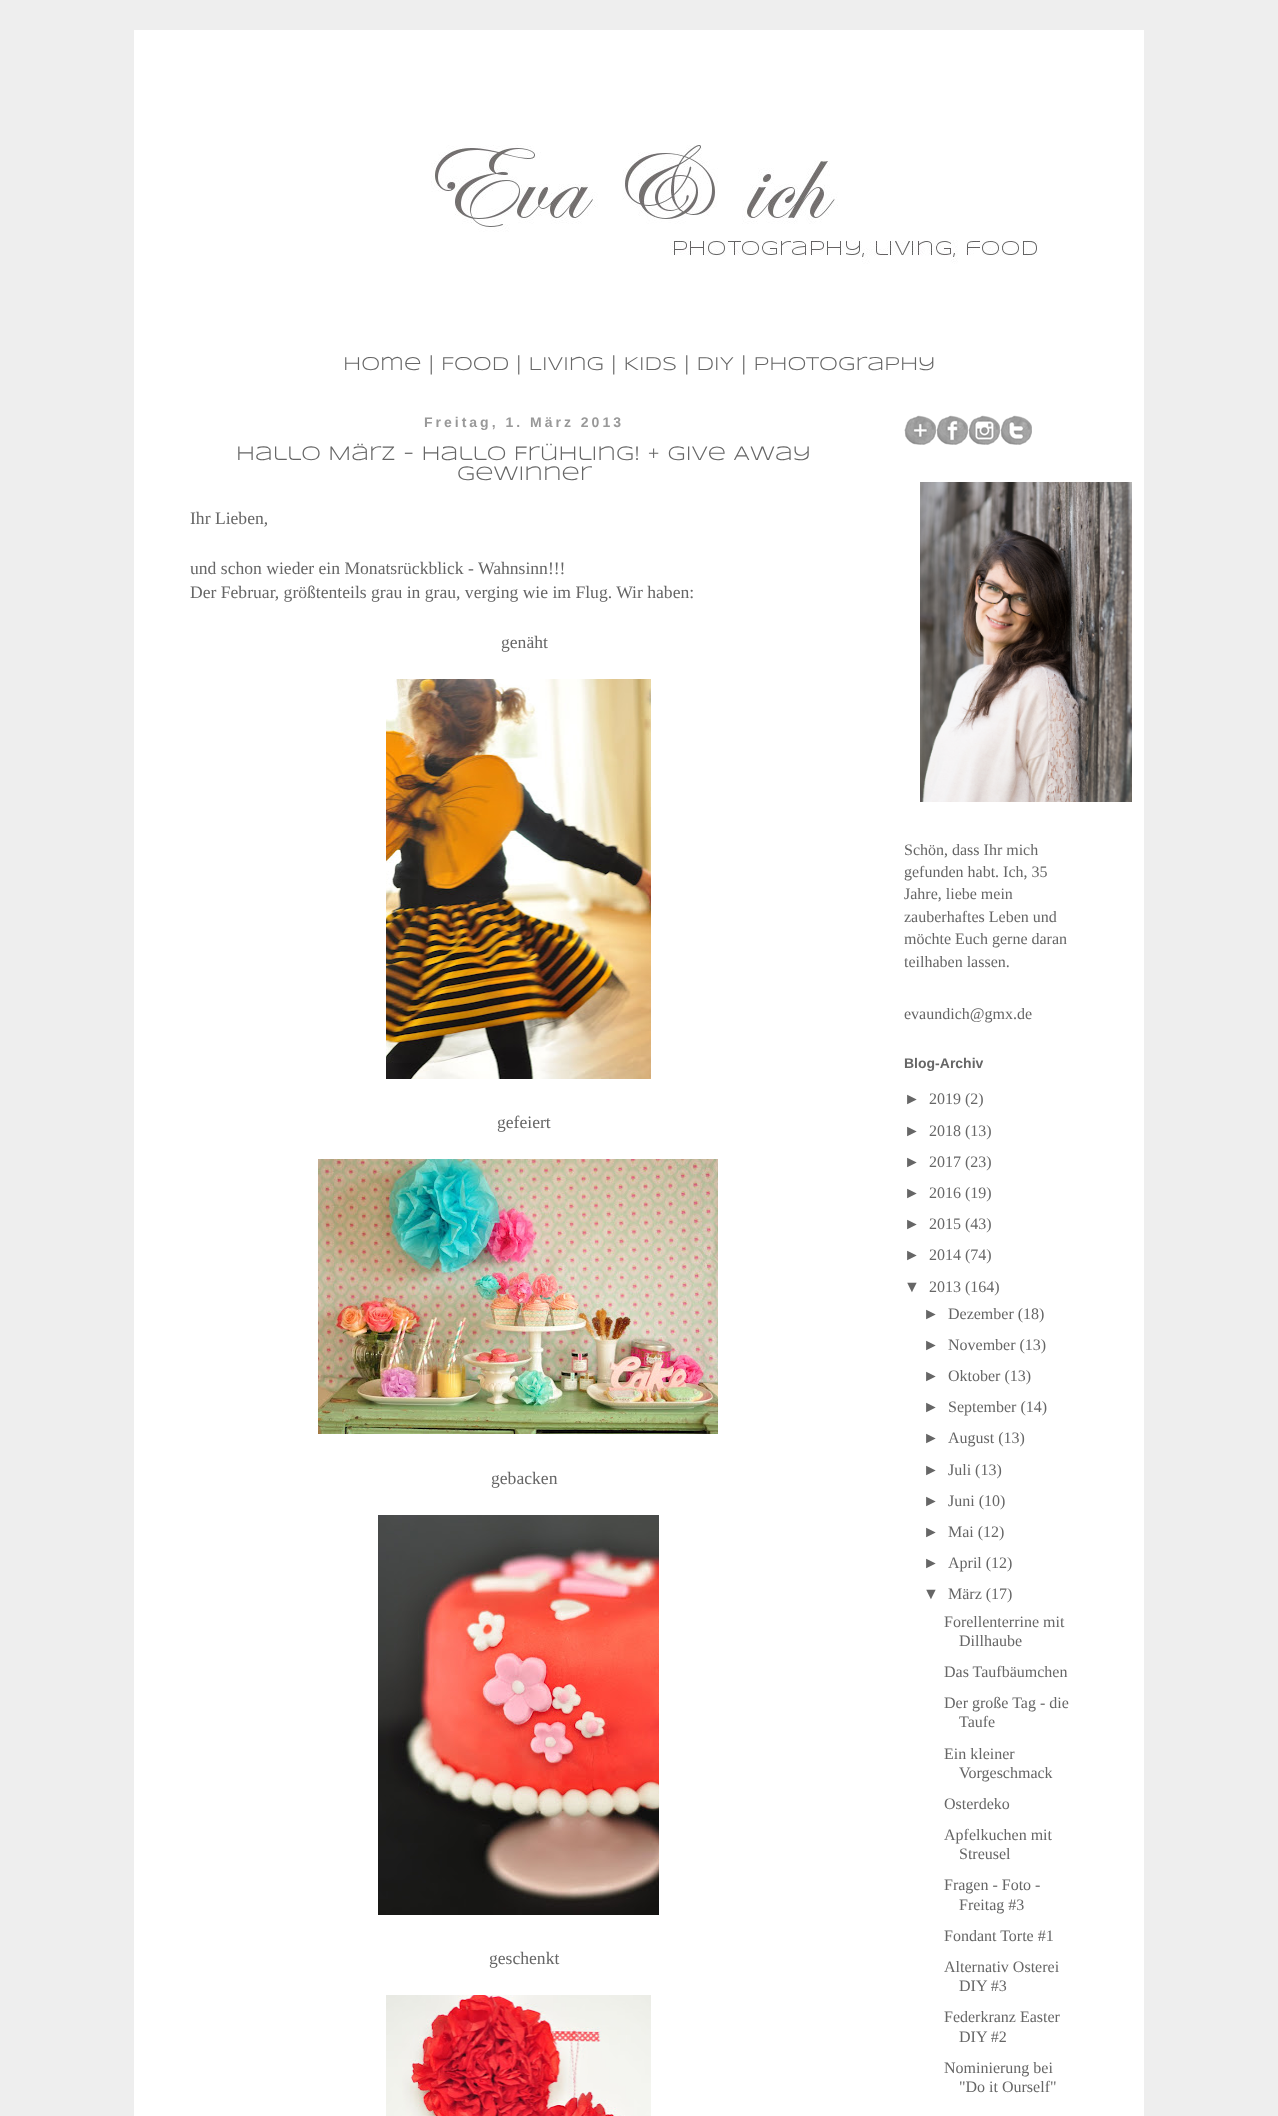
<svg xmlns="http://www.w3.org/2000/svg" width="1278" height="2116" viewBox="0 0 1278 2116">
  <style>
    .t1 { font: 19.2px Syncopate; fill: #666; }
    .t2 { font: bold 14px Liberation Sans; letter-spacing: 3px; fill: #999; }
    .t3 { font: 20px Syncopate; fill: #666; }
    .t4 { font: 17.6px Liberation Serif; fill: #666; }
    .t5 { font: 16px Liberation Serif; fill: #666; }
    .t6 { font: bold 14px Liberation Sans; fill: #666; }
    .t7 { font: 16px Liberation Sans; fill: #666; }
  </style>
  <rect width="100%" height="100%" fill="#eee"/>
  <rect x="134" y="30" width="1010" height="2086" fill="#fff"/>
  <image x="431" y="145" width="607" height="119" href="images/1.png"/>
  <text x="343" y="370" class="t1">Home | Food | Living | Kids | DIY | Photography</text>
  <text x="424" y="427" class="t2">Freitag, 1. März 2013</text>
  <text x="236" y="460" class="t3">Hallo März - hallo Frühling! + Give Away</text>
  <text x="457" y="480" class="t3">Gewinner</text>
  <text x="190" y="524" class="t4">Ihr Lieben,</text>
  <text x="190" y="574" class="t4">und schon wieder ein Monatsrückblick - Wahnsinn!!!</text>
  <text x="190" y="598" class="t4">Der Februar, größtenteils grau in grau, verging wie im Flug. Wir haben:</text>
  <text x="501" y="648" class="t4">genäht</text>
  <image x="386" y="679" width="265" height="400" href="images/2.png"/>
  <text x="497" y="1128" class="t4">gefeiert</text>
  <image x="318" y="1159" width="400" height="275" href="images/3.png"/>
  <text x="491" y="1484" class="t4">gebacken</text>
  <image x="378" y="1515" width="281" height="400" href="images/4.png"/>
  <text x="489" y="1964" class="t4">geschenkt</text>
  <image x="386" y="1995" width="265" height="121" href="images/5.png"/>
  <image x="904" y="415" width="32" height="30" href="images/6.png"/>
  <image x="936" y="415" width="32" height="30" href="images/7.png"/>
  <image x="968" y="415" width="32" height="30" href="images/8.png"/>
  <image x="1000" y="415" width="32" height="30" href="images/9.png"/>
  <image x="920" y="482" width="212" height="320" href="images/10.png"/>
  <text x="904" y="855" class="t5">Schön, dass Ihr mich</text>
  <text x="904" y="877" class="t5">gefunden habt. Ich, 35</text>
  <text x="904" y="899" class="t5">Jahre, liebe mein</text>
  <text x="904" y="922" class="t5">zauberhaftes Leben und</text>
  <text x="904" y="944" class="t5">möchte Euch gerne daran</text>
  <text x="904" y="967" class="t5">teilhaben lassen.</text>
  <text x="904" y="1019" class="t5">evaundich@gmx.de</text>
  <text x="904" y="1068" class="t6">Blog-Archiv</text>
  <text x="904" y="1104" class="t7">►</text>
  <text x="929" y="1104" class="t5">2019 (2)</text>
  <text x="904" y="1136" class="t7">►</text>
  <text x="929" y="1136" class="t5">2018 (13)</text>
  <text x="904" y="1167" class="t7">►</text>
  <text x="929" y="1167" class="t5">2017 (23)</text>
  <text x="904" y="1198" class="t7">►</text>
  <text x="929" y="1198" class="t5">2016 (19)</text>
  <text x="904" y="1229" class="t7">►</text>
  <text x="929" y="1229" class="t5">2015 (43)</text>
  <text x="904" y="1260" class="t7">►</text>
  <text x="929" y="1260" class="t5">2014 (74)</text>
  <text x="904" y="1292" class="t7">▼</text>
  <text x="929" y="1292" class="t5">2013 (164)</text>
  <text x="923" y="1319" class="t7">►</text>
  <text x="948" y="1319" class="t5">Dezember (18)</text>
  <text x="923" y="1350" class="t7">►</text>
  <text x="948" y="1350" class="t5">November (13)</text>
  <text x="923" y="1381" class="t7">►</text>
  <text x="948" y="1381" class="t5">Oktober (13)</text>
  <text x="923" y="1412" class="t7">►</text>
  <text x="948" y="1412" class="t5">September (14)</text>
  <text x="923" y="1443" class="t7">►</text>
  <text x="948" y="1443" class="t5">August (13)</text>
  <text x="923" y="1475" class="t7">►</text>
  <text x="948" y="1475" class="t5">Juli (13)</text>
  <text x="923" y="1506" class="t7">►</text>
  <text x="948" y="1506" class="t5">Juni (10)</text>
  <text x="923" y="1537" class="t7">►</text>
  <text x="948" y="1537" class="t5">Mai (12)</text>
  <text x="923" y="1568" class="t7">►</text>
  <text x="948" y="1568" class="t5">April (12)</text>
  <text x="923" y="1599" class="t7">▼</text>
  <text x="948" y="1599" class="t5">März (17)</text>
  <text x="944" y="1627" class="t5">Forellenterrine mit</text>
  <text x="959" y="1646" class="t5">Dillhaube</text>
  <text x="944" y="1677" class="t5">Das Taufbäumchen</text>
  <text x="944" y="1708" class="t5">Der große Tag - die</text>
  <text x="959" y="1727" class="t5">Taufe</text>
  <text x="944" y="1759" class="t5">Ein kleiner</text>
  <text x="959" y="1778" class="t5">Vorgeschmack</text>
  <text x="944" y="1809" class="t5">Osterdeko</text>
  <text x="944" y="1840" class="t5">Apfelkuchen mit</text>
  <text x="959" y="1859" class="t5">Streusel</text>
  <text x="944" y="1890" class="t5">Fragen - Foto -</text>
  <text x="959" y="1910" class="t5">Freitag #3</text>
  <text x="944" y="1941" class="t5">Fondant Torte #1</text>
  <text x="944" y="1972" class="t5">Alternativ Osterei</text>
  <text x="959" y="1991" class="t5">DIY #3</text>
  <text x="944" y="2022" class="t5">Federkranz Easter</text>
  <text x="959" y="2042" class="t5">DIY #2</text>
  <text x="944" y="2073" class="t5">Nominierung bei</text>
  <text x="959" y="2092" class="t5">"Do it Ourself"</text>
</svg>
